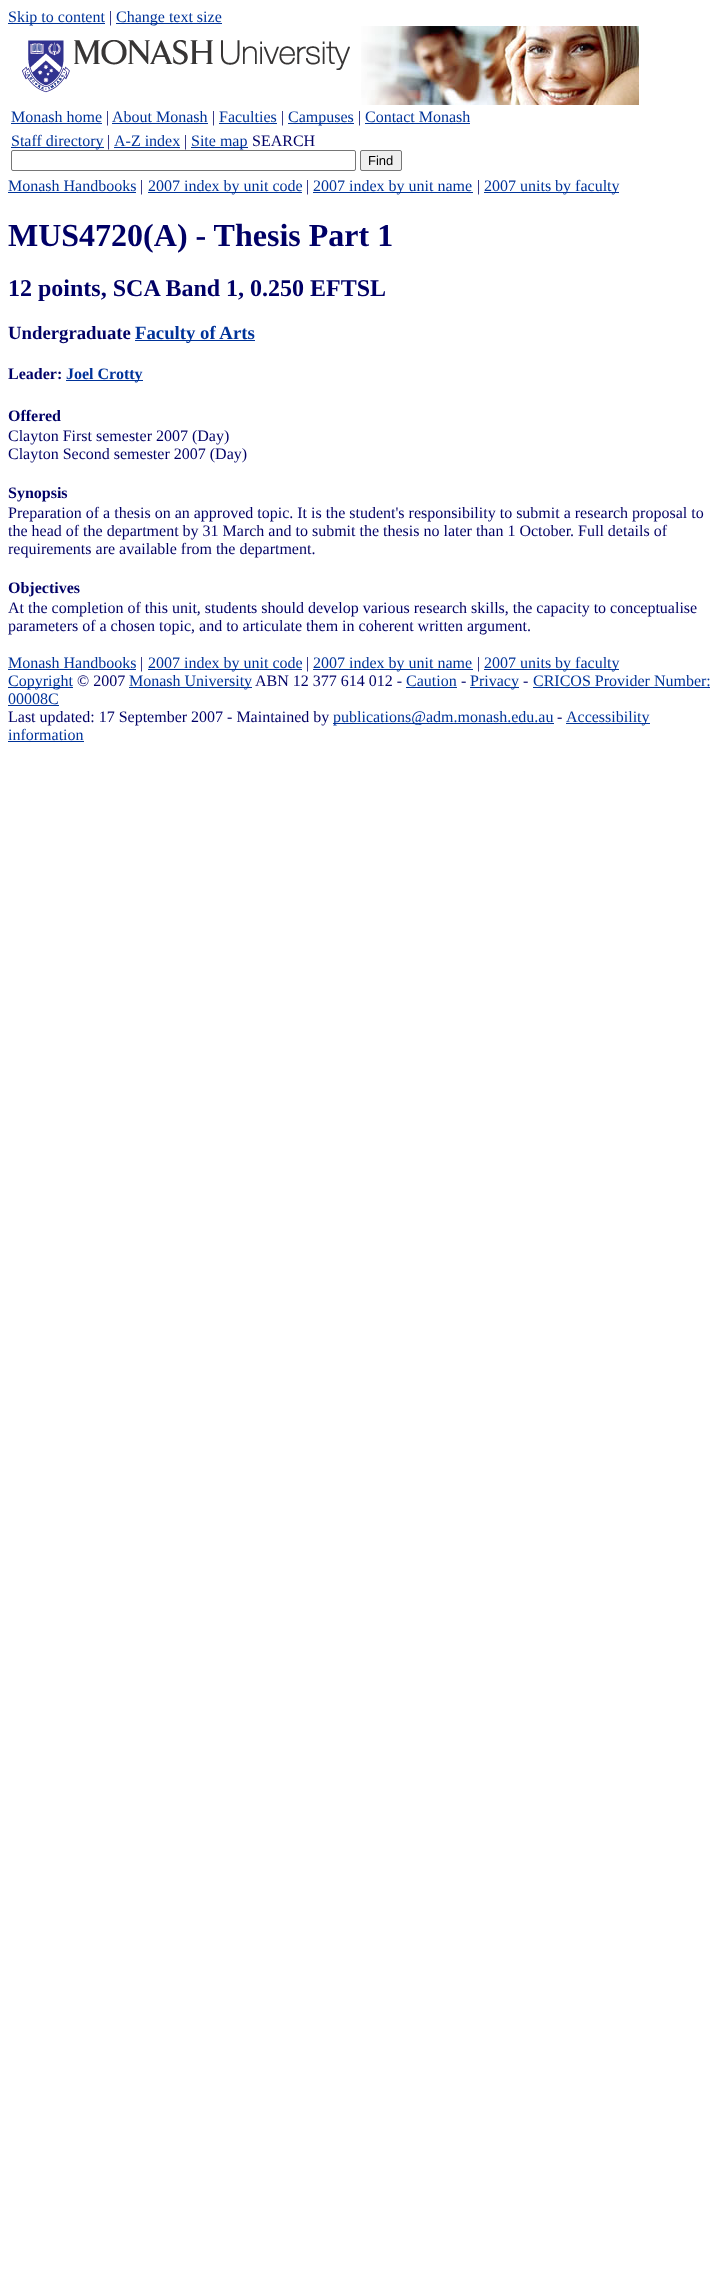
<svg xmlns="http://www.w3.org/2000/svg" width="723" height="2281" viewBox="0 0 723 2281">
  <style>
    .t1 { font: 16px Liberation Serif; fill: #039; }
    .t2 { font: 16px Liberation Serif; fill: #006; }
    .t3 { font: 13px Liberation Sans; fill: #000; }
    .t4 { font: bold 32px Liberation Serif; fill: #006; }
    .t5 { font: bold 24px Liberation Serif; fill: #006; }
    .t6 { font: bold 18.75px Liberation Serif; fill: #006; }
    .t7 { font: bold 18.75px Liberation Serif; fill: #039; }
    .t8 { font: bold 16px Liberation Serif; fill: #006; }
    .t9 { font: bold 16px Liberation Serif; fill: #039; }
  </style>
  <rect width="100%" height="100%" fill="#fff"/>
  <rect x="8" y="23" width="97" height="1" fill="#039"/>
  <text x="8" y="22" class="t1">Skip to content</text>
  <text x="109" y="22" class="t2">|</text>
  <rect x="116" y="23" width="106" height="1" fill="#039"/>
  <text x="116" y="22" class="t1">Change text size</text>
  <image x="22" y="40" width="328" height="53" href="images/1.png"/>
  <image x="361" y="26" width="278" height="79" href="images/2.png"/>
  <text x="11" y="122" class="t1">Monash home</text>
  <rect x="11" y="123" width="91" height="1" fill="#039"/>
  <text x="106" y="122" class="t2">|</text>
  <text x="112" y="122" class="t1">About Monash</text>
  <rect x="112" y="123" width="96" height="1" fill="#039"/>
  <text x="212" y="122" class="t2">|</text>
  <text x="219" y="122" class="t1">Faculties</text>
  <rect x="219" y="123" width="58" height="1" fill="#039"/>
  <text x="281" y="122" class="t2">|</text>
  <rect x="288" y="123" width="66" height="1" fill="#039"/>
  <text x="288" y="122" class="t1">Campuses</text>
  <text x="358" y="122" class="t2">|</text>
  <text x="365" y="122" class="t1">Contact Monash</text>
  <rect x="365" y="123" width="105" height="1" fill="#039"/>
  <rect x="11" y="147" width="93" height="1" fill="#039"/>
  <text x="11" y="146" class="t1">Staff directory</text>
  <text x="107" y="146" class="t2">|</text>
  <text x="114" y="146" class="t1">A-Z index</text>
  <rect x="114" y="147" width="66" height="1" fill="#039"/>
  <text x="184" y="146" class="t2">|</text>
  <rect x="191" y="147" width="57" height="1" fill="#039"/>
  <text x="191" y="146" class="t1">Site map</text>
  <text x="252" y="146" class="t2">SEARCH</text>
  <rect x="11.5" y="150.5" width="344" height="20" rx="1.5" fill="none" stroke="#767676"/>
  <rect x="360.5" y="150.5" width="41" height="20" rx="1.5" fill="#efefef" stroke="#767676"/>
  <text x="368" y="165" class="t3">Find</text>
  <text x="8" y="191" class="t1">Monash Handbooks</text>
  <rect x="8" y="192" width="128" height="1" fill="#039"/>
  <text x="140" y="191" class="t2">|</text>
  <rect x="148" y="192" width="154" height="1" fill="#039"/>
  <text x="148" y="191" class="t1">2007 index by unit code</text>
  <text x="306" y="191" class="t2">|</text>
  <rect x="313" y="192" width="160" height="1" fill="#039"/>
  <text x="313" y="191" class="t1">2007 index by unit name</text>
  <text x="477" y="191" class="t2">|</text>
  <rect x="484" y="192" width="135" height="1" fill="#039"/>
  <text x="484" y="191" class="t1">2007 units by faculty</text>
  <text x="8" y="246" class="t4">MUS4720(A) - Thesis Part 1</text>
  <text x="8" y="296" class="t5">12 points, SCA Band 1, 0.250 EFTSL</text>
  <text x="8" y="339" class="t6">Undergraduate</text>
  <rect x="135" y="340" width="120" height="1" fill="#039"/>
  <text x="135" y="339" class="t7">Faculty of Arts</text>
  <text x="8" y="379" class="t8">Leader:</text>
  <rect x="66" y="380" width="77" height="1" fill="#039"/>
  <text x="66" y="379" class="t9">Joel Crotty</text>
  <text x="8" y="421" class="t8">Offered</text>
  <text x="8" y="441" class="t2">Clayton First semester 2007 (Day)</text>
  <text x="8" y="459" class="t2">Clayton Second semester 2007 (Day)</text>
  <text x="8" y="498" class="t8">Synopsis</text>
  <text x="8" y="518" class="t2">Preparation of a thesis on an approved topic. It is the student's responsibility to submit a research proposal to</text>
  <text x="8" y="536" class="t2">the head of the department by 31 March and to submit the thesis no later than 1 October. Full details of</text>
  <text x="8" y="554" class="t2">requirements are available from the department.</text>
  <text x="8" y="593" class="t8">Objectives</text>
  <text x="8" y="613" class="t2">At the completion of this unit, students should develop various research skills, the capacity to conceptualise</text>
  <text x="8" y="631" class="t2">parameters of a chosen topic, and to articulate them in coherent written argument.</text>
  <text x="8" y="668" class="t1">Monash Handbooks</text>
  <rect x="8" y="669" width="128" height="1" fill="#039"/>
  <text x="140" y="668" class="t2">|</text>
  <rect x="148" y="669" width="154" height="1" fill="#039"/>
  <text x="148" y="668" class="t1">2007 index by unit code</text>
  <text x="306" y="668" class="t2">|</text>
  <rect x="313" y="669" width="160" height="1" fill="#039"/>
  <text x="313" y="668" class="t1">2007 index by unit name</text>
  <text x="477" y="668" class="t2">|</text>
  <rect x="484" y="669" width="135" height="1" fill="#039"/>
  <text x="484" y="668" class="t1">2007 units by faculty</text>
  <rect x="8" y="687" width="65" height="1" fill="#039"/>
  <text x="8" y="686" class="t1">Copyright</text>
  <text x="77" y="686" class="t2">© 2007</text>
  <rect x="129" y="687" width="123" height="1" fill="#039"/>
  <text x="129" y="686" class="t1">Monash University</text>
  <text x="255" y="686" class="t2">ABN 12 377 614 012 -</text>
  <text x="406" y="686" class="t1">Caution</text>
  <rect x="406" y="687" width="51" height="1" fill="#039"/>
  <text x="461" y="686" class="t2">-</text>
  <rect x="470" y="687" width="49" height="1" fill="#039"/>
  <text x="470" y="686" class="t1">Privacy</text>
  <text x="523" y="686" class="t2">-</text>
  <text x="533" y="686" class="t1">CRICOS Provider Number:</text>
  <rect x="533" y="687" width="177" height="1" fill="#039"/>
  <text x="8" y="704" class="t1">00008C</text>
  <rect x="8" y="705" width="51" height="1" fill="#039"/>
  <text x="8" y="722" class="t2">Last updated: 17 September 2007 - Maintained by</text>
  <rect x="333" y="723" width="221" height="1" fill="#039"/>
  <text x="333" y="722" class="t1">publications@adm.monash.edu.au</text>
  <text x="557" y="722" class="t2">-</text>
  <rect x="566" y="723" width="84" height="1" fill="#039"/>
  <text x="566" y="722" class="t1">Accessibility</text>
  <text x="8" y="740" class="t1">information</text>
  <rect x="8" y="741" width="76" height="1" fill="#039"/>
</svg>
